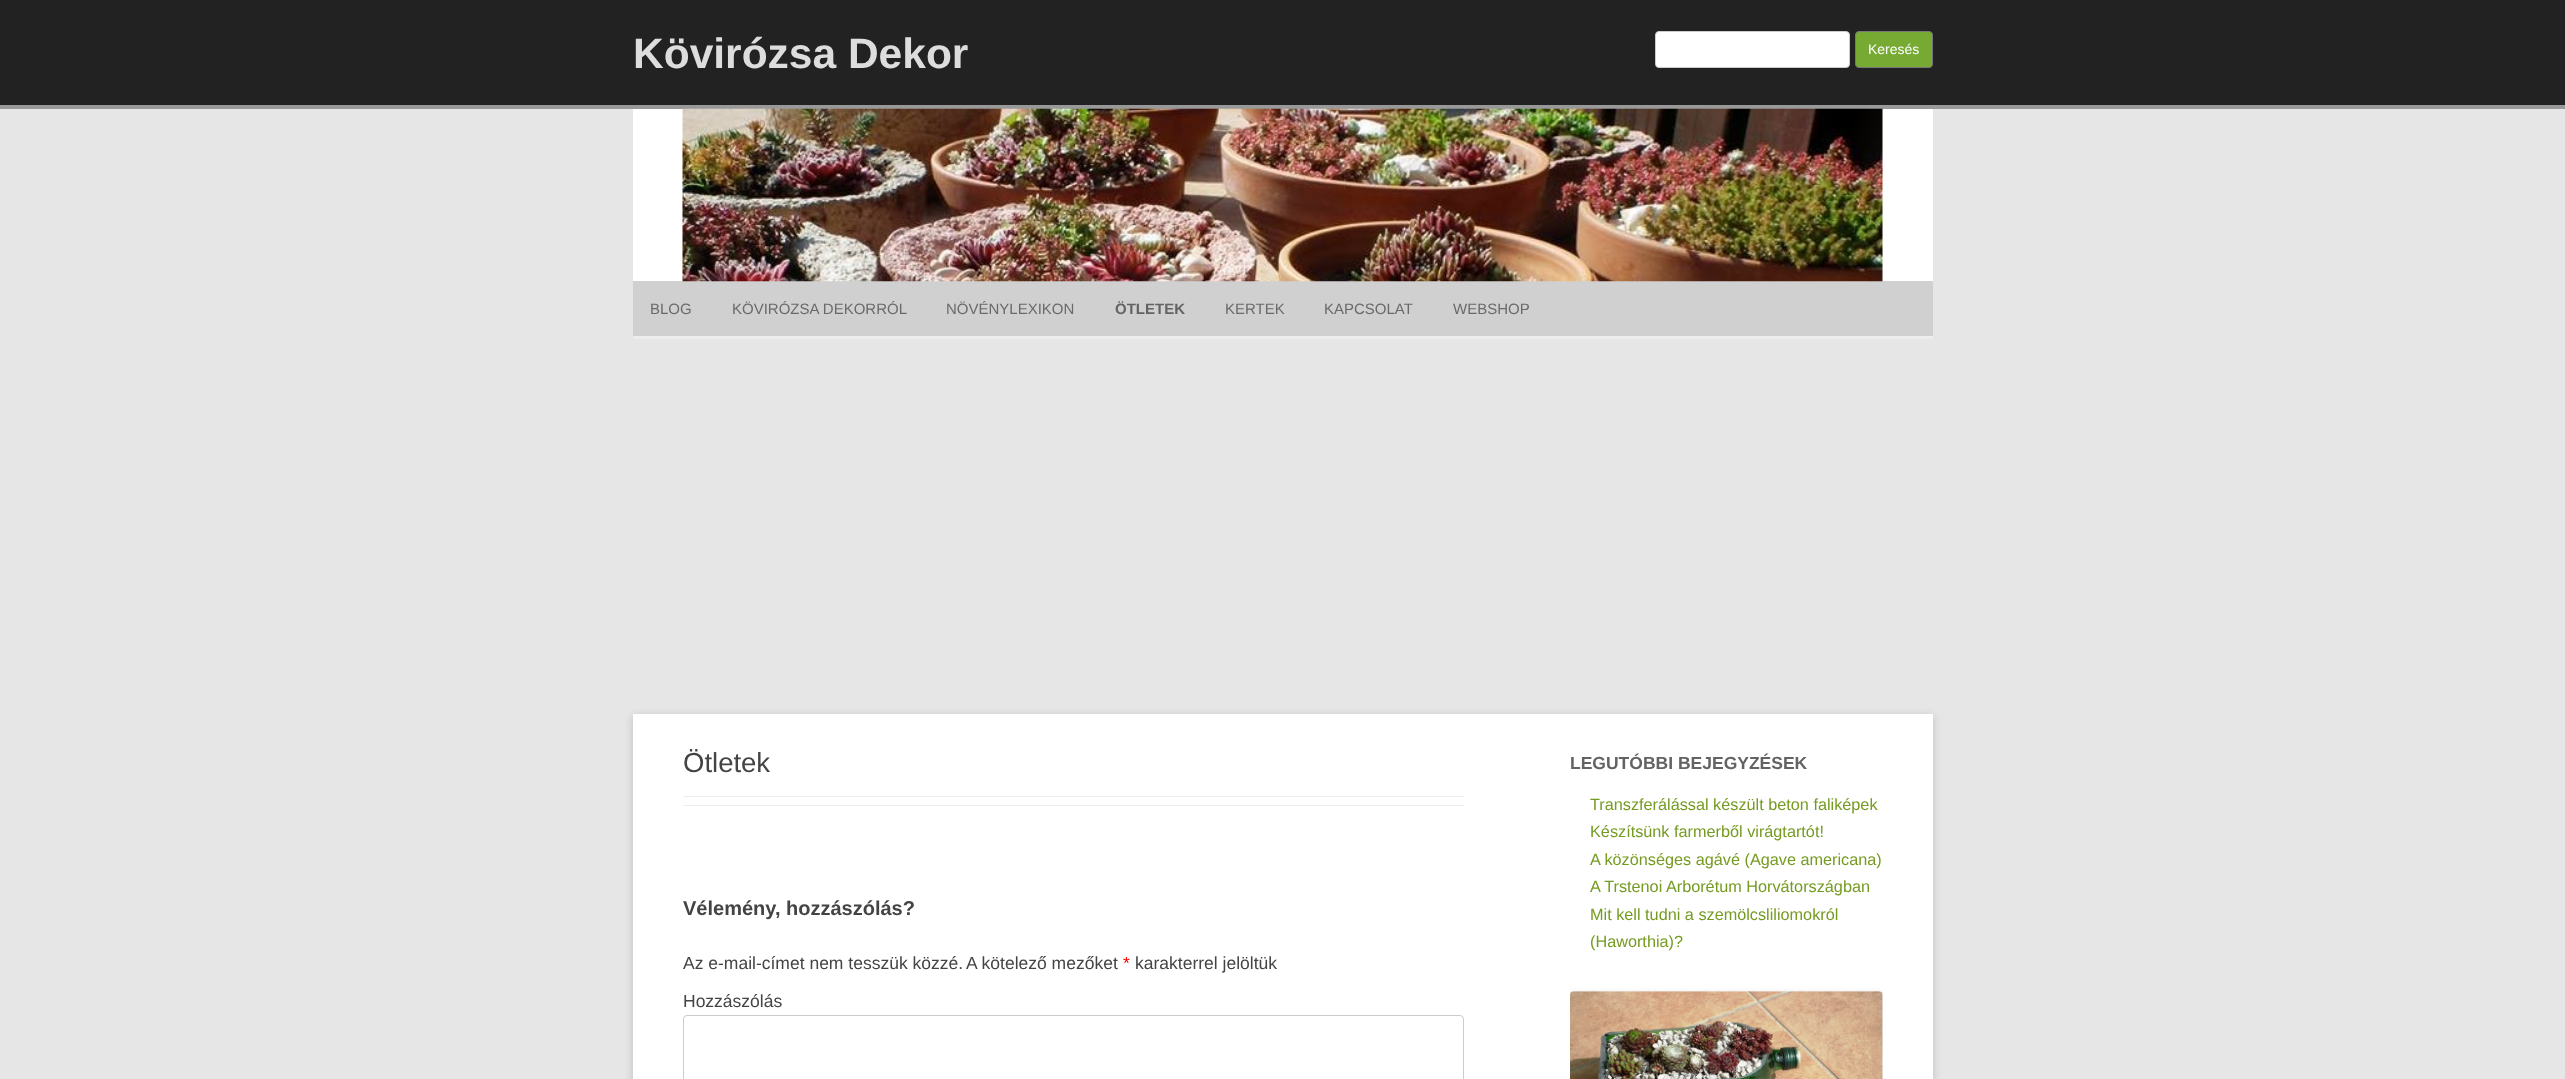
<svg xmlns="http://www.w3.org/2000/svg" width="2565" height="1079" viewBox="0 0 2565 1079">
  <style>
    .t1 { font: bold 42.5px Liberation Sans; fill: #ddd; }
    .t2 { font: 14px Liberation Sans; fill: #fff; }
    .t3 { font: 15px Liberation Sans; fill: #6a6a6a; }
    .t4 { font: bold 15px Liberation Sans; fill: #636363; }
    .t5 { font: 27.5px Liberation Sans; fill: #444; }
    .t6 { font: bold 20px Liberation Sans; fill: #444; }
    .t7 { font: 17.5px Liberation Sans; fill: #444; }
    .t8 { font: 17.5px Liberation Sans; fill: #f00; }
    .t9 { font: bold 17.5px Liberation Sans; fill: #636363; }
    .t10 { font: 16.25px Liberation Sans; fill: #759b21; }
  </style>
  <defs>
    <clipPath id="clip1"><rect x="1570" y="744" width="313" height="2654"/></clipPath>
  </defs>
  <rect width="100%" height="100%" fill="#e6e6e6"/>
  <rect x="0" y="0" width="2565" height="105" fill="#222"/>
  <rect x="0" y="105" width="2565" height="4" fill="#999"/>
  <text x="633" y="68" class="t1">Kövirózsa Dekor</text>
  <rect x="1655.5" y="31.5" width="194" height="36" rx="3.5" fill="#fff" stroke="#ccc"/>
  <rect x="1855.5" y="31.5" width="77" height="36" rx="3.5" fill="#7a3" stroke="#777"/>
  <text x="1868" y="54" class="t2">Keresés</text>
  <rect x="633" y="109" width="1300" height="172" fill="#fff"/>
  <rect x="633" y="281" width="1300" height="55" fill="#d0d0d0"/>
  <image x="682" y="108" width="1201" height="174" href="images/1.png"/>
  <rect x="633" y="336" width="1300" height="3" fill="#ededed"/>
  <text x="650" y="314" class="t3">BLOG</text>
  <text x="732" y="314" class="t3">KÖVIRÓZSA DEKORRÓL</text>
  <text x="946" y="314" class="t3">NÖVÉNYLEXIKON</text>
  <text x="1115" y="314" class="t4">ÖTLETEK</text>
  <text x="1225" y="314" class="t3">KERTEK</text>
  <text x="1324" y="314" class="t3">KAPCSOLAT</text>
  <text x="1453" y="314" class="t3">WEBSHOP</text>
  <rect x="633" y="716" width="1300" height="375" fill="#6464644d" filter="blur(4px)"/>
  <rect x="633" y="714" width="1300" height="365" fill="#fff"/>
  <text x="683" y="772" class="t5">Ötletek</text>
  <rect x="683" y="796" width="781" height="1" fill="#ededed"/>
  <rect x="683" y="805" width="781" height="1" fill="#ededed"/>
  <text x="683" y="915" class="t6">Vélemény, hozzászólás?</text>
  <text x="683" y="969" class="t7">Az e-mail-címet nem tesszük közzé.</text>
  <text x="966" y="969" class="t7">A kötelező mezőket</text>
  <text x="1123" y="969" class="t8">*</text>
  <text x="1135" y="969" class="t7">karakterrel jelöltük</text>
  <text x="683" y="1007" class="t7">Hozzászólás</text>
  <rect x="683.5" y="1015.5" width="780" height="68" rx="3.5" fill="none" stroke="#ccc"/>
  <text x="1570" y="769" class="t9">LEGUTÓBBI BEJEGYZÉSEK</text>
  <text x="1590" y="810" class="t10">Transzferálással készült beton faliképek</text>
  <text x="1590" y="837" class="t10">Készítsünk farmerből virágtartót!</text>
  <text x="1590" y="865" class="t10">A közönséges agávé (Agave americana)</text>
  <text x="1590" y="892" class="t10">A Trstenoi Arborétum Horvátországban</text>
  <text x="1590" y="920" class="t10">Mit kell tudni a szemölcsliliomokról</text>
  <text x="1590" y="947" class="t10">(Haworthia)?</text>
  <g clip-path="url(#clip1)">
    <rect x="1570" y="993" width="313" height="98" rx="4" fill="#00000033" filter="blur(2.5px)"/>
  </g>
  <image x="1570" y="991" width="313" height="88" href="images/2.png"/>
</svg>
